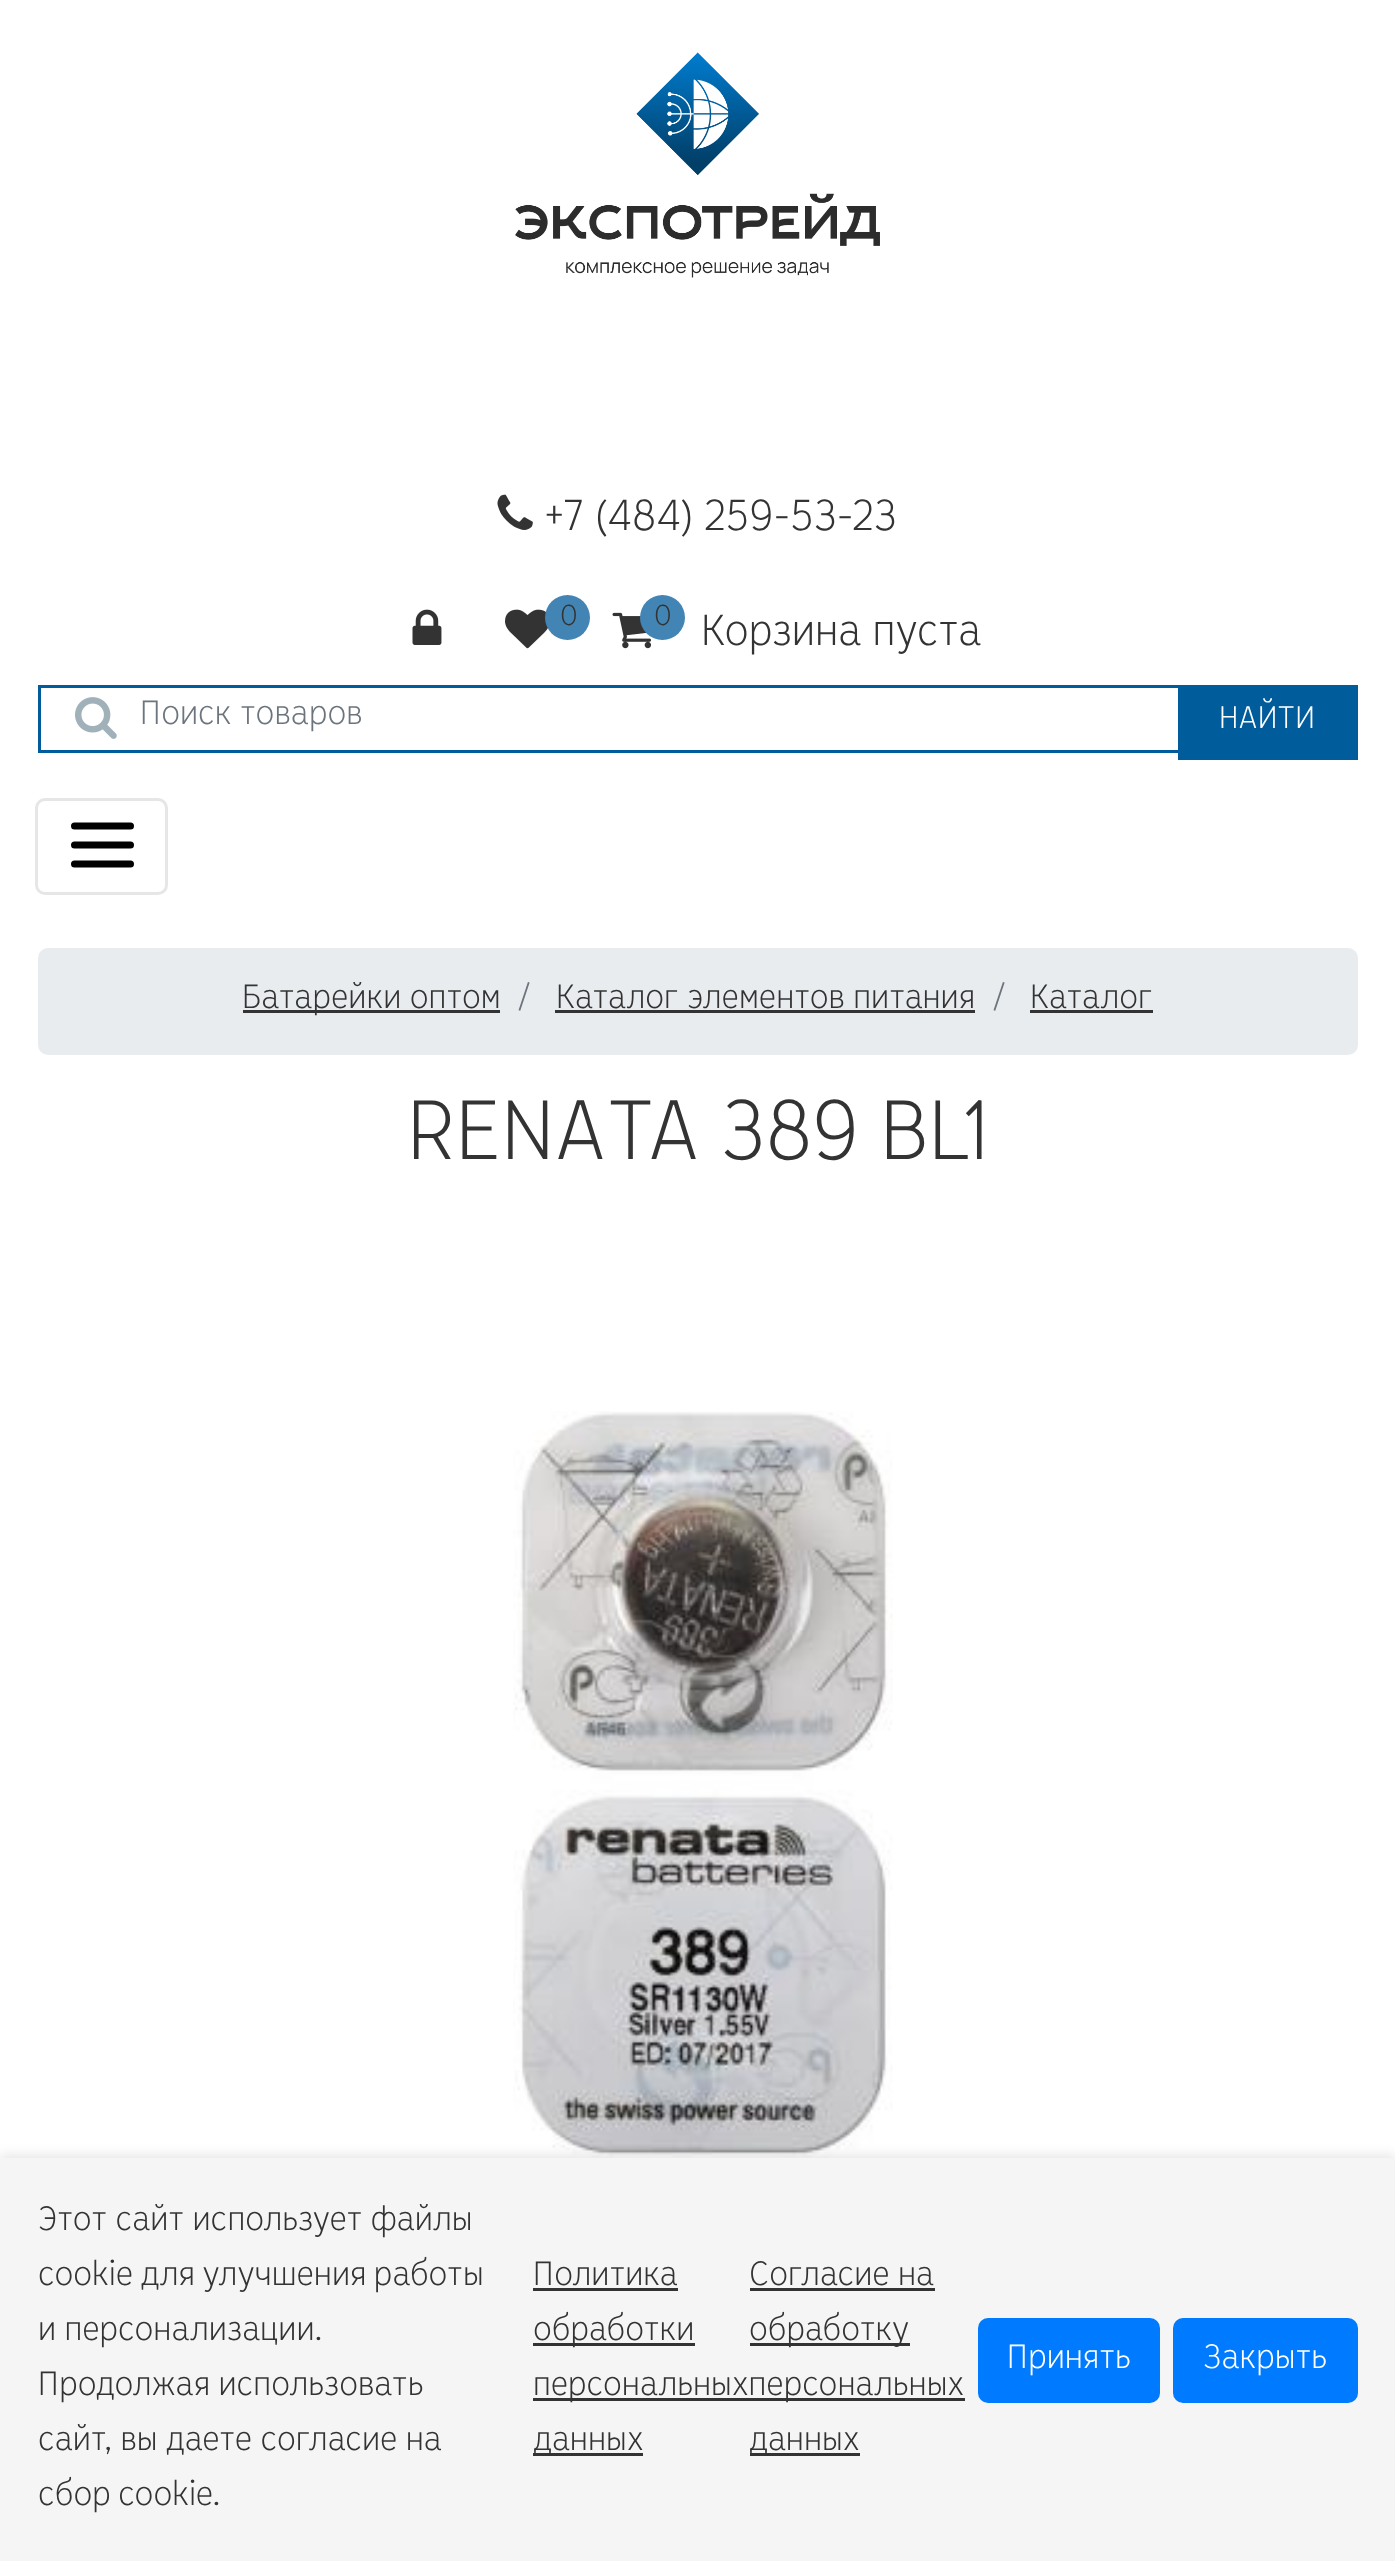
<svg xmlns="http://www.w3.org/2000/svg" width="1395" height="2561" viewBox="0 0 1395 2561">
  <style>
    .t1 { font: 100 45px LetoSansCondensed; fill: #333; }
    .t2 { font: 100 30px LetoSansCondensed; fill: #333; }
    .t3 { font: 100 35px LetoSansCondensed; fill: #6c757d; }
    .t4 { font: 100 32.5px LetoSansCondensed; fill: #fff; }
    .t5 { font: 100 35px LetoSansCondensed; fill: #333; }
    .t6 { font: 100 87.5px LetoSansCondensed; fill: #333; }
    .t7 { font: 100 35px LetoSansCondensed; fill: #fff; }
  </style>
  <rect width="100%" height="100%" fill="#fff"/>
  <image x="515" y="52" width="365" height="226" href="images/1.png"/>
  <image x="497" y="494" width="36" height="36" href="images/2.png"/>
  <text x="544" y="530" class="t1">+7 (484) 259-53-23</text>
  <image x="412" y="609" width="30" height="36" href="images/3.png"/>
  <image x="505" y="609" width="43" height="40" href="images/4.png"/>
  <circle cx="567.5" cy="617.5" r="22.5" fill="#4285b4"/>
  <text x="560" y="625" class="t2">0</text>
  <image x="612" y="612" width="40" height="37" href="images/5.png"/>
  <circle cx="662.5" cy="617.5" r="22.5" fill="#4285b4"/>
  <text x="654" y="625" class="t2">0</text>
  <text x="701" y="645" class="t1">Корзина пуста</text>
  <rect x="39.5" y="686.5" width="1317" height="65" fill="none" stroke="#005c9b" stroke-width="3"/>
  <image x="75" y="697" width="42" height="42" href="images/6.png"/>
  <text x="140" y="724" class="t3">Поиск товаров</text>
  <rect x="1178" y="688" width="180" height="72" fill="#005c9b"/>
  <text x="1219" y="728" class="t4">НАЙТИ</text>
  <rect x="36.5" y="799.5" width="130" height="94" rx="8.5" fill="none" stroke="#e6e6e6" stroke-width="3"/>
  <path d="M74.5 826H130.5M74.5 845H130.5M74.5 864H130.5" fill="none" stroke="#000" stroke-width="7" stroke-linecap="round"/>
  <rect x="38" y="948" width="1320" height="107" rx="10" fill="#e9ecef"/>
  <rect x="243" y="1010" width="257" height="3" fill="#333"/>
  <text x="242" y="1008" class="t5">Батарейки оптом</text>
  <text x="518" y="1008" class="t3">/</text>
  <text x="556" y="1008" class="t5">Каталог элементов питания</text>
  <rect x="555" y="1010" width="420" height="3" fill="#333"/>
  <text x="993" y="1008" class="t3">/</text>
  <text x="1030" y="1008" class="t5">Каталог</text>
  <rect x="1030" y="1010" width="123" height="3" fill="#333"/>
  <text x="407" y="1159" class="t6">RENATA 389 BL1</text>
  <image x="513" y="1411" width="380" height="747" href="images/7.png"/>
  <rect x="0" y="2155" width="1395" height="405" fill="#0000001a" filter="blur(6px)"/>
  <rect x="0" y="2158" width="1395" height="403" fill="#f5f5f5"/>
  <text x="38" y="2230" class="t5">Этот сайт использует файлы</text>
  <text x="38" y="2285" word-spacing="-1" class="t5">cookie для улучшения работы</text>
  <text x="38" y="2340" class="t5">и персонализации.</text>
  <text x="38" y="2395" class="t5">Продолжая использовать</text>
  <text x="38" y="2450" class="t5">сайт, вы даете согласие на</text>
  <text x="38" y="2505" word-spacing="-1" class="t5">сбор cookie.</text>
  <text x="533" y="2285" class="t5">Политика</text>
  <rect x="533" y="2288" width="145" height="3" fill="#333"/>
  <rect x="533" y="2343" width="162" height="3" fill="#333"/>
  <text x="533" y="2340" class="t5">обработки</text>
  <rect x="533" y="2398" width="432" height="3" fill="#333"/>
  <text x="533" y="2395" class="t5">персональныхперсональных</text>
  <rect x="533" y="2453" width="110" height="3" fill="#333"/>
  <text x="533" y="2450" class="t5">данных</text>
  <text x="749" y="2285" class="t5">Согласие на</text>
  <rect x="750" y="2288" width="185" height="3" fill="#333"/>
  <rect x="750" y="2343" width="160" height="3" fill="#333"/>
  <text x="749" y="2340" class="t5">обработку</text>
  <rect x="750" y="2453" width="110" height="3" fill="#333"/>
  <text x="749" y="2450" class="t5">данных</text>
  <rect x="978" y="2318" width="182" height="85" rx="10" fill="#007bff"/>
  <text x="1007" y="2368" class="t7">Принять</text>
  <rect x="1173" y="2318" width="185" height="85" rx="10" fill="#007bff"/>
  <text x="1203" y="2368" class="t7">Закрыть</text>
</svg>
